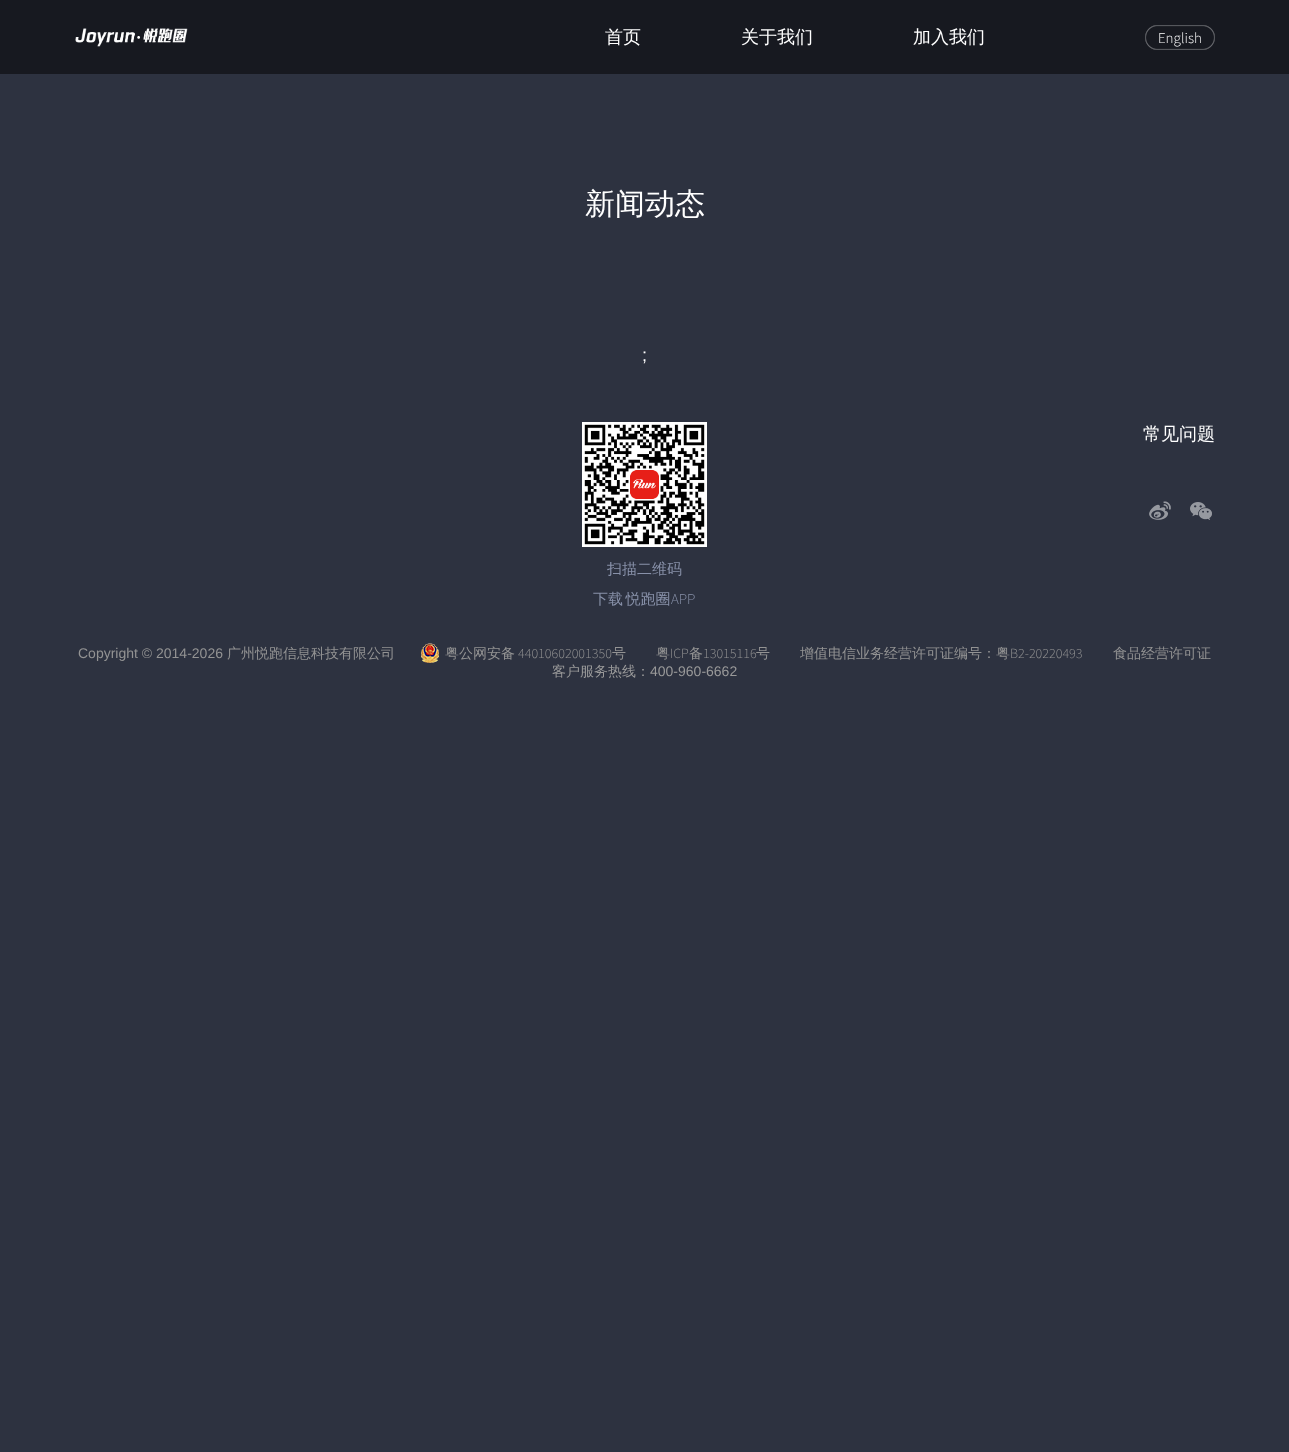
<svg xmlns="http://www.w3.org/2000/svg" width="1289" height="1452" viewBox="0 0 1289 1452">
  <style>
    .t1 { font: 500 18px WenQuanYi Zen Hei; fill: #fff; }
    .t2 { font: 300 15px Source Sans Pro; fill: #fff; }
    .t3 { font: 500 30px WenQuanYi Zen Hei; fill: #fff; }
    .t4 { font: 18px Liberation Sans; fill: #fff; }
    .t5 { font: 500 15px WenQuanYi Zen Hei; fill: #8891a9; }
    .t6 { font: 300 15px Source Sans Pro; fill: #8891a9; }
    .t7 { font: 14px Liberation Sans; fill: #939393; }
    .t8 { font: 500 14px WenQuanYi Zen Hei; fill: #939393; }
    .t9 { font: 300 14px Source Sans Pro; fill: #939393; }
    .t10 { font: 500 14px WenQuanYi Zen Hei; fill: #999; }
    .t11 { font: 14px Liberation Sans; fill: #999; }
  </style>
  <rect width="100%" height="100%" fill="#2d3240"/>
  <rect x="0" y="0" width="1289" height="74" fill="#171920"/>
  <image x="75" y="28" width="113" height="19" href="images/1.png"/>
  <text x="605" y="43" class="t1">首页</text>
  <text x="741" y="43" class="t1">关于我们</text>
  <text x="913" y="43" class="t1">加入我们</text>
  <image x="1145" y="25" width="70" height="25" href="images/2.png"/>
  <text x="1158" y="43" class="t2">English</text>
  <text x="585" y="214" class="t3">新闻动态</text>
  <text x="642" y="361" class="t4">;</text>
  <text x="1143" y="440" class="t1">常见问题</text>
  <image x="1149" y="501" width="22" height="19" href="images/3.png"/>
  <image x="1190" y="502" width="22" height="18" href="images/4.png"/>
  <image x="582" y="422" width="125" height="125" href="images/5.png"/>
  <text x="607" y="574" class="t5">扫描二维码</text>
  <text x="593" y="604" word-spacing="-2" class="t5">下载 悦跑圈</text>
  <text x="671" y="604" class="t6">APP</text>
  <text x="78" y="658" class="t7">Copyright © 2014-2026</text>
  <text x="227" y="658" class="t8">广州悦跑信息科技有限公司</text>
  <image x="421" y="643" width="18" height="20" href="images/6.png"/>
  <text x="445" y="658" class="t8">粤公网安备</text>
  <text x="518" y="658" class="t9">44010602001350</text>
  <text x="612" y="658" class="t8">号</text>
  <text x="656" y="658" class="t8">粤</text>
  <text x="670" y="658" class="t9">ICP</text>
  <text x="689" y="658" class="t8">备</text>
  <text x="703" y="658" class="t9">13015116</text>
  <text x="756" y="658" class="t8">号</text>
  <text x="800" y="658" class="t8">增值电信业务经营许可证编号：粤</text>
  <text x="1010" y="658" class="t9">B2-20220493</text>
  <text x="1113" y="658" class="t8">食品经营许可证</text>
  <text x="552" y="676" class="t10">客户服务热线：</text>
  <text x="650" y="676" class="t11">400-960-6662</text>
</svg>
